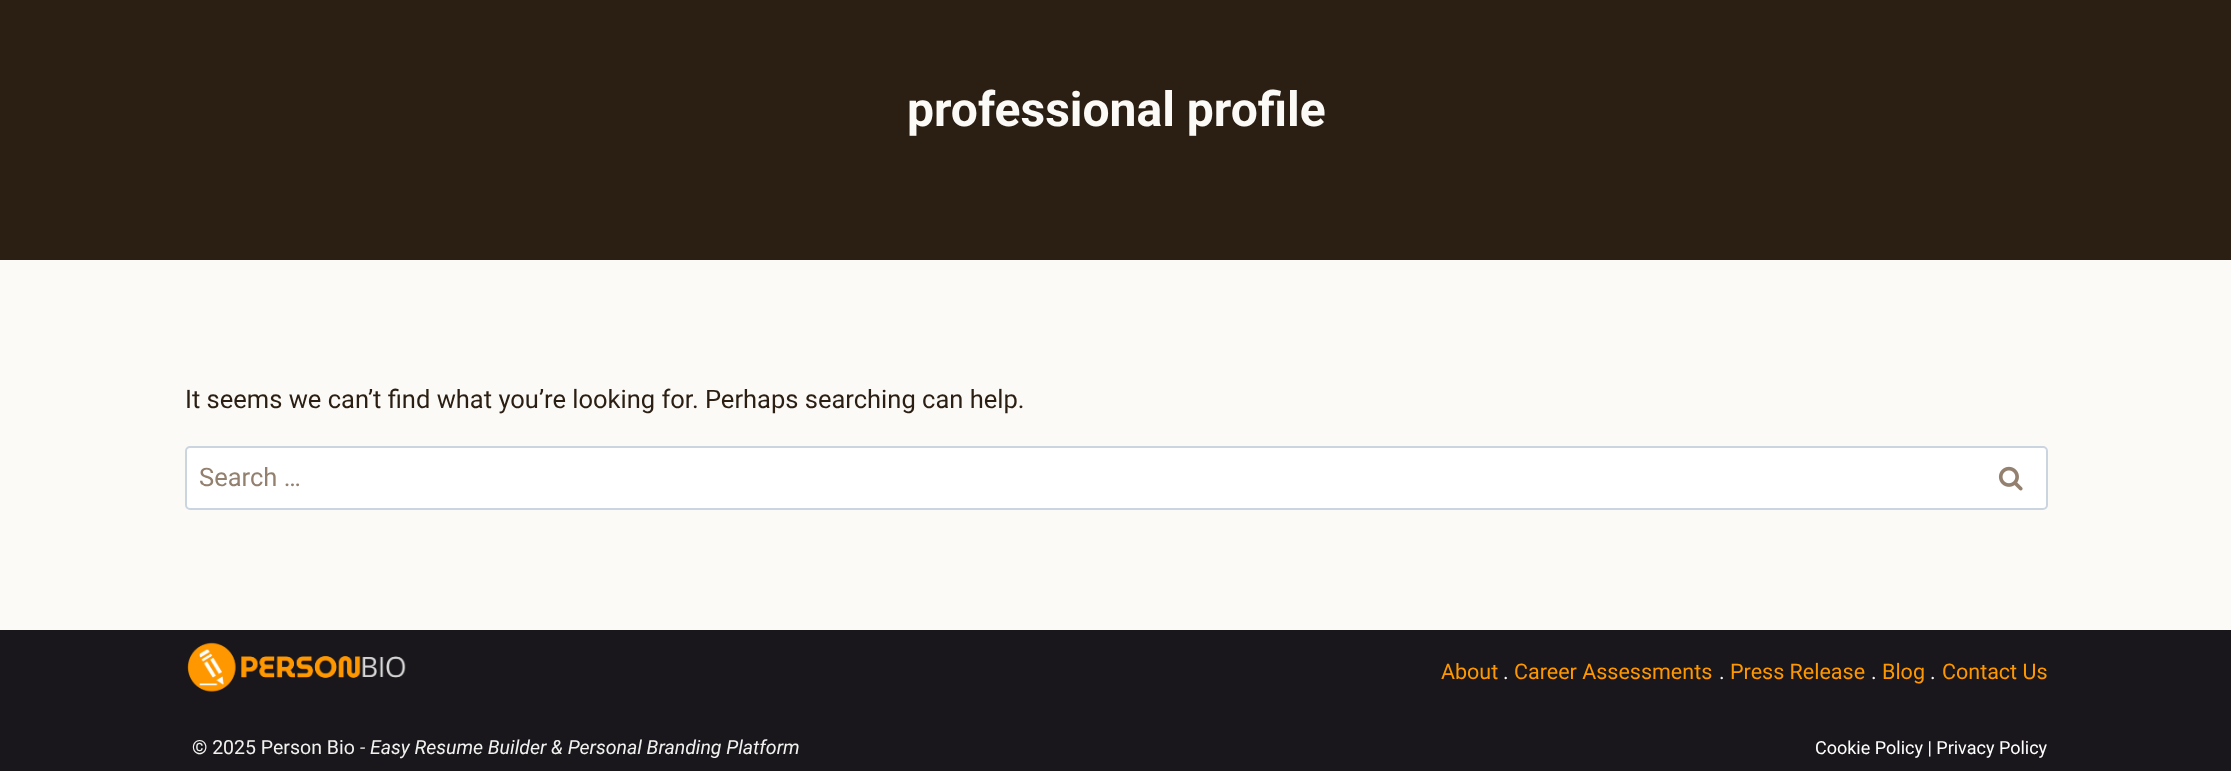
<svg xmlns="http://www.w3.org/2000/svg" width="2231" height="771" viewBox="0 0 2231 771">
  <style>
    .t1 { font: bold 48px Roboto; fill: #fcfaf7; }
    .t2 { font: 25.5px Roboto; fill: #2b1f13; }
    .t3 { font: 25.5px Roboto; fill: #93806f; }
    .t4 { font: 21.5px Roboto; fill: #ff9800; }
    .t5 { font: 21.5px Roboto; fill: #fcfaf7; }
    .t6 { font: 19.5px Roboto; fill: #f1f2ef; }
    .t7 { font: italic 19.5px Roboto; fill: #f1f2ef; }
    .t8 { font: 18px Roboto; fill: #fff; }
  </style>
  <rect width="100%" height="100%" fill="#fcfaf7"/>
  <rect x="0" y="0" width="2231" height="260" fill="#2b1f13"/>
  <text x="907" y="126" class="t1">professional profile</text>
  <text x="185" y="408" class="t2">It seems we can’t find what you’re looking for. Perhaps searching can help.</text>
  <rect x="186" y="447" width="1861" height="62" rx="4" fill="#fff" stroke="#cbd5e0" stroke-width="2"/>
  <text x="199" y="486" class="t3">Search …</text>
  <image x="1998" y="466" width="25" height="25" href="images/1.png"/>
  <rect x="0" y="630" width="2231" height="141" fill="#19171b"/>
  <image x="187" y="642" width="219" height="50" href="images/2.png"/>
  <text x="1441" y="679" class="t4">About</text>
  <text x="1503" y="679" class="t5">.</text>
  <text x="1514" y="679" class="t4">Career Assessments</text>
  <text x="1719" y="679" class="t5">.</text>
  <text x="1730" y="679" class="t4">Press Release</text>
  <text x="1871" y="679" class="t5">.</text>
  <text x="1882" y="679" class="t4">Blog</text>
  <text x="1930" y="679" class="t5">.</text>
  <text x="1942" y="679" class="t4">Contact Us</text>
  <text x="192" y="754" class="t6">© 2025 Person Bio</text>
  <text x="360" y="754" class="t7">- Easy Resume Builder &amp; Personal Branding Platform</text>
  <text x="1815" y="754" class="t8">Cookie Policy | Privacy Policy</text>
</svg>
